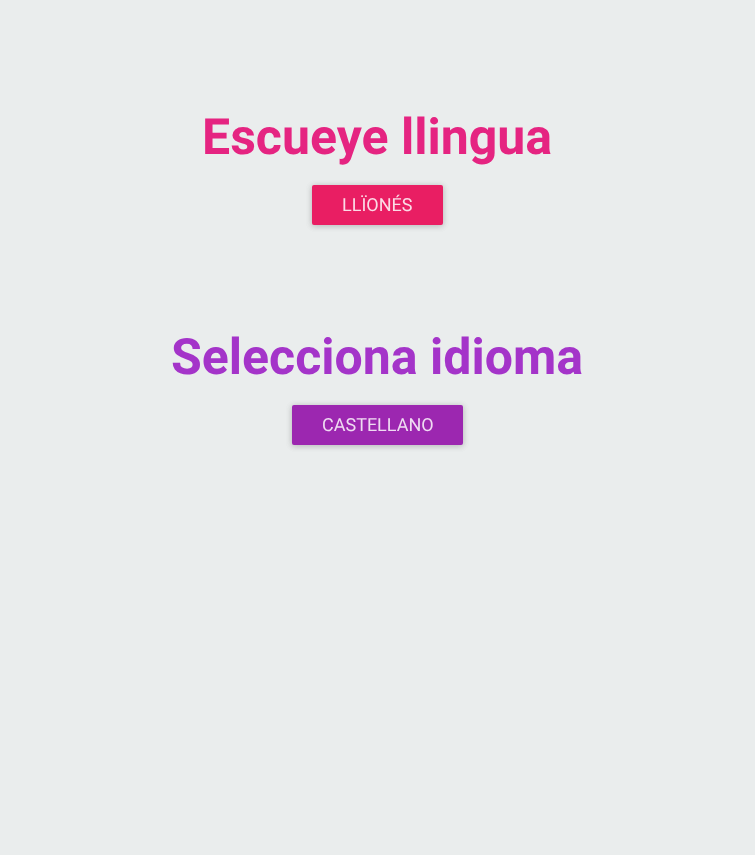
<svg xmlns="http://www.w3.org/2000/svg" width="755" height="855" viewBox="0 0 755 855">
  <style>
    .t1 { font: bold 50px Roboto; fill: #e52481; }
    .t2 { font: 18px Roboto; fill: #fbdbe6; }
    .t3 { font: bold 50px Roboto; fill: #a434c9; }
    .t4 { font: 18px Roboto; fill: #efdcf2; }
  </style>
  <rect width="100%" height="100%" fill="#eaeded"/>
  <text x="202" y="154" class="t1">Escueye llingua</text>
  <rect x="312" y="186" width="131" height="40" rx="2" fill="#0000001f" filter="blur(3px)"/>
  <rect x="312" y="186" width="131" height="40" rx="2" fill="#0000001f" filter="blur(3px)"/>
  <rect x="312" y="185" width="131" height="40" rx="2" fill="#e91e63"/>
  <text x="342" y="211" class="t2">LLÏONÉS</text>
  <text x="171" y="374" class="t3">Selecciona idioma</text>
  <rect x="292" y="406" width="171" height="40" rx="2" fill="#0000001f" filter="blur(3px)"/>
  <rect x="292" y="406" width="171" height="40" rx="2" fill="#0000001f" filter="blur(3px)"/>
  <rect x="292" y="405" width="171" height="40" rx="2" fill="#9c27b0"/>
  <text x="322" y="431" class="t4">CASTELLANO</text>
</svg>
